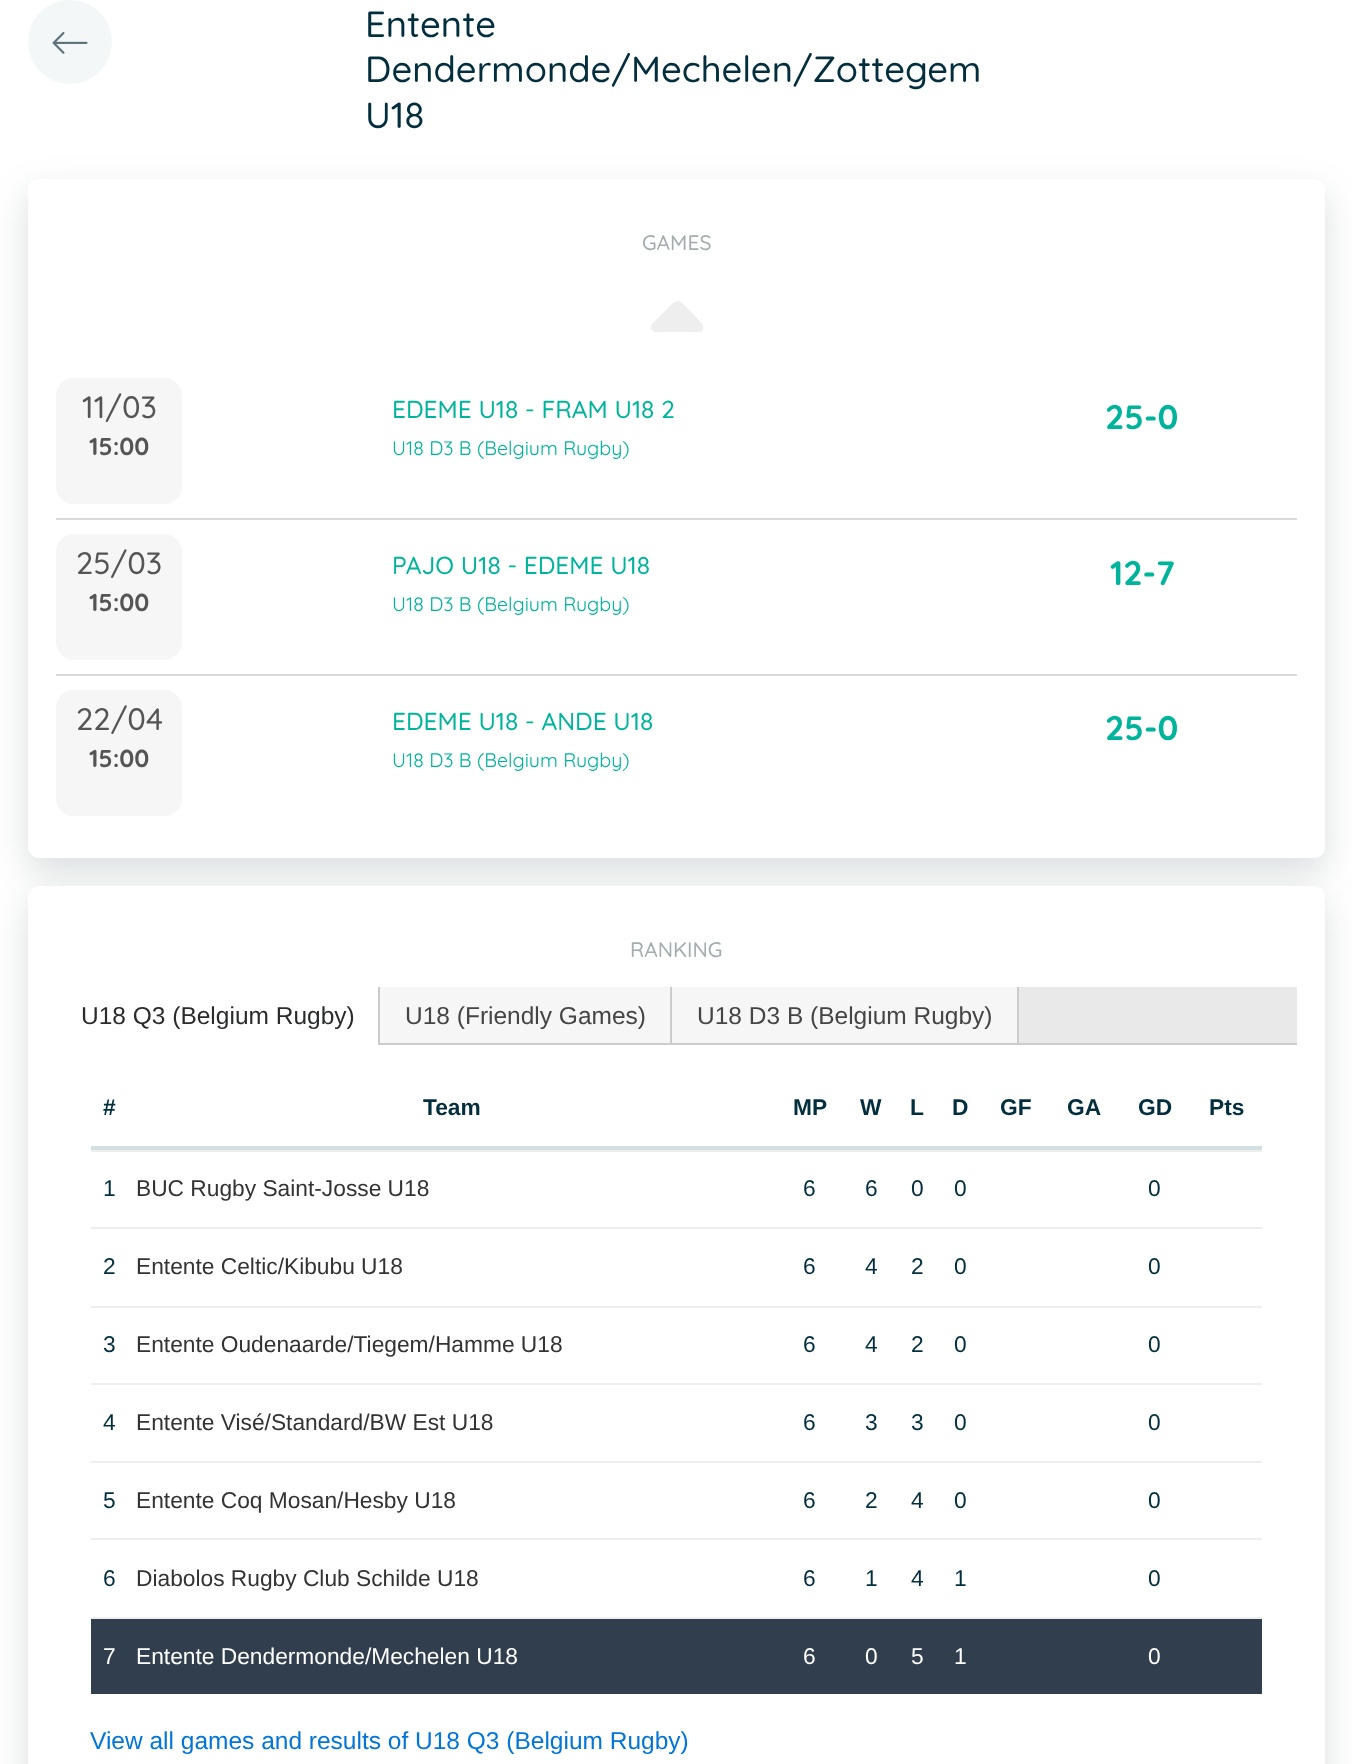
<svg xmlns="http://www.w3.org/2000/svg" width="1352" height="1764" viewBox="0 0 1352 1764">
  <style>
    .t1 { font: 500 36.4px Quicksand; fill: #022e3e; }
    .t2 { font: 500 21px Quicksand; fill: #a3adae; }
    .t3 { font: 500 31px Quicksand; fill: #555; }
    .t4 { font: bold 24.5px Quicksand; fill: #555; }
    .t5 { font: 500 24.5px Quicksand; fill: #00b49c; }
    .t6 { font: 19.6px Quicksand; fill: #00b49c; }
    .t7 { font: bold 34px Quicksand; fill: #00b49c; }
    .t8 { font: 24.5px Liberation Sans; fill: #292b2c; }
    .t9 { font: 24.5px Liberation Sans; fill: #454545; }
    .t10 { font: bold 22.75px Liberation Sans; fill: #022e3e; }
    .t11 { font: 22.75px Liberation Sans; fill: #022e3e; }
    .t12 { font: 22.75px Liberation Sans; fill: #333; }
    .t13 { font: 22.75px Liberation Sans; fill: #fff; }
    .t14 { font: 24.5px Liberation Sans; fill: #0275d8; }
  </style>
  <rect width="100%" height="100%" fill="#fff"/>
  <circle cx="70" cy="42" r="41" fill="#f4f7f7" stroke="#f4f7f7" stroke-width="2"/>
  <image x="52" y="32" width="36" height="22" href="images/1.png"/>
  <text x="365" y="37" class="t1">Entente</text>
  <text x="365" y="82" class="t1">Dendermonde/Mechelen/Zottegem</text>
  <text x="365" y="128" class="t1">U18</text>
  <rect x="28" y="193" width="1297" height="679" rx="11" fill="#475c5d33" filter="blur(17.5px)"/>
  <rect x="28" y="179" width="1297" height="679" rx="11" fill="#fff"/>
  <text x="642" y="250" class="t2">GAMES</text>
  <path d="M681 302C677 299 673 303 670 306L656 320C653 323 648 327 653 331C655 333 661 332 663 332H691C695 332 705 334 703 326C703 323 685 306 681 302Z" fill="#eee"/>
  <rect x="56" y="518" width="1241" height="2" fill="#d9d9d9"/>
  <rect x="56" y="378" width="126" height="126" rx="18" fill="#f6f6f6"/>
  <text x="82" y="418" class="t3">11/03</text>
  <text x="89" y="455" class="t4">15:00</text>
  <text x="392" y="418" class="t5">EDEME U18 - FRAM U18 2</text>
  <text x="392" y="455" class="t6">U18 D3 B (Belgium Rugby)</text>
  <text x="1105" y="429" class="t7">25-0</text>
  <rect x="56" y="674" width="1241" height="2" fill="#d9d9d9"/>
  <rect x="56" y="534" width="126" height="126" rx="18" fill="#f6f6f6"/>
  <text x="76" y="574" class="t3">25/03</text>
  <text x="89" y="611" class="t4">15:00</text>
  <text x="392" y="574" class="t5">PAJO U18 - EDEME U18</text>
  <text x="392" y="611" class="t6">U18 D3 B (Belgium Rugby)</text>
  <text x="1110" y="585" class="t7">12-7</text>
  <rect x="56" y="690" width="126" height="126" rx="18" fill="#f6f6f6"/>
  <text x="76" y="730" class="t3">22/04</text>
  <text x="89" y="767" class="t4">15:00</text>
  <text x="392" y="730" class="t5">EDEME U18 - ANDE U18</text>
  <text x="392" y="767" class="t6">U18 D3 B (Belgium Rugby)</text>
  <text x="1105" y="740" class="t7">25-0</text>
  <rect x="28" y="900" width="1297" height="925" rx="11" fill="#475c5d33" filter="blur(17.5px)"/>
  <path d="M39 886H1314C1320 886 1325 891 1325 897V1764H28V897C28 891 33 886 39 886Z" fill="#fff"/>
  <text x="630" y="957" class="t2">RANKING</text>
  <rect x="1019" y="987" width="278" height="56" fill="#e9e9e9"/>
  <rect x="380" y="1043" width="917" height="2" fill="#ccc"/>
  <rect x="378" y="987" width="2" height="58" fill="#ccc"/>
  <text x="81" y="1024" class="t8">U18 Q3 (Belgium Rugby)</text>
  <rect x="380" y="987" width="290" height="56" fill="#f6f6f6"/>
  <rect x="670" y="987" width="2" height="56" fill="#ccc"/>
  <text x="405" y="1024" class="t9">U18 (Friendly Games)</text>
  <rect x="672" y="987" width="345" height="56" fill="#f6f6f6"/>
  <rect x="1017" y="987" width="2" height="56" fill="#ccc"/>
  <text x="697" y="1024" class="t9">U18 D3 B (Belgium Rugby)</text>
  <rect x="91" y="1146" width="1171" height="4" fill="#d4dfe1"/>
  <text x="103" y="1115" class="t10">#</text>
  <text x="423" y="1115" class="t10">Team</text>
  <text x="793" y="1115" class="t10">MP</text>
  <text x="860" y="1115" class="t10">W</text>
  <text x="910" y="1115" class="t10">L</text>
  <text x="952" y="1115" class="t10">D</text>
  <text x="1000" y="1115" class="t10">GF</text>
  <text x="1067" y="1115" class="t10">GA</text>
  <text x="1138" y="1115" class="t10">GD</text>
  <text x="1209" y="1115" class="t10">Pts</text>
  <rect x="91" y="1150" width="1171" height="2" fill="#eee"/>
  <text x="103" y="1196" class="t11">1</text>
  <text x="136" y="1196" class="t12">BUC Rugby Saint-Josse U18</text>
  <text x="803" y="1196" class="t11">6</text>
  <text x="865" y="1196" class="t11">6</text>
  <text x="911" y="1196" class="t11">0</text>
  <text x="954" y="1196" class="t11">0</text>
  <text x="1148" y="1196" class="t11">0</text>
  <rect x="91" y="1227" width="1171" height="2" fill="#eee"/>
  <text x="103" y="1274" class="t11">2</text>
  <text x="136" y="1274" class="t12">Entente Celtic/Kibubu U18</text>
  <text x="803" y="1274" class="t11">6</text>
  <text x="865" y="1274" class="t11">4</text>
  <text x="911" y="1274" class="t11">2</text>
  <text x="954" y="1274" class="t11">0</text>
  <text x="1148" y="1274" class="t11">0</text>
  <rect x="91" y="1306" width="1171" height="2" fill="#eee"/>
  <text x="103" y="1352" class="t11">3</text>
  <text x="136" y="1352" class="t12">Entente Oudenaarde/Tiegem/Hamme U18</text>
  <text x="803" y="1352" class="t11">6</text>
  <text x="865" y="1352" class="t11">4</text>
  <text x="911" y="1352" class="t11">2</text>
  <text x="954" y="1352" class="t11">0</text>
  <text x="1148" y="1352" class="t11">0</text>
  <rect x="91" y="1383" width="1171" height="2" fill="#eee"/>
  <text x="103" y="1430" class="t11">4</text>
  <text x="136" y="1430" class="t12">Entente Visé/Standard/BW Est U18</text>
  <text x="803" y="1430" class="t11">6</text>
  <text x="865" y="1430" class="t11">3</text>
  <text x="911" y="1430" class="t11">3</text>
  <text x="954" y="1430" class="t11">0</text>
  <text x="1148" y="1430" class="t11">0</text>
  <rect x="91" y="1461" width="1171" height="2" fill="#eee"/>
  <text x="103" y="1508" class="t11">5</text>
  <text x="136" y="1508" class="t12">Entente Coq Mosan/Hesby U18</text>
  <text x="803" y="1508" class="t11">6</text>
  <text x="865" y="1508" class="t11">2</text>
  <text x="911" y="1508" class="t11">4</text>
  <text x="954" y="1508" class="t11">0</text>
  <text x="1148" y="1508" class="t11">0</text>
  <rect x="91" y="1538" width="1171" height="2" fill="#eee"/>
  <text x="103" y="1586" class="t11">6</text>
  <text x="136" y="1586" class="t12">Diabolos Rugby Club Schilde U18</text>
  <text x="803" y="1586" class="t11">6</text>
  <text x="865" y="1586" class="t11">1</text>
  <text x="911" y="1586" class="t11">4</text>
  <text x="954" y="1586" class="t11">1</text>
  <text x="1148" y="1586" class="t11">0</text>
  <rect x="91" y="1619" width="1171" height="75" fill="#303e4d"/>
  <rect x="91" y="1617" width="1171" height="2" fill="#eee"/>
  <text x="103" y="1664" class="t13">7</text>
  <text x="136" y="1664" class="t13">Entente Dendermonde/Mechelen U18</text>
  <text x="803" y="1664" class="t13">6</text>
  <text x="865" y="1664" class="t13">0</text>
  <text x="911" y="1664" class="t13">5</text>
  <text x="954" y="1664" class="t13">1</text>
  <text x="1148" y="1664" class="t13">0</text>
  <text x="90" y="1749" class="t14">View all games and results of U18 Q3 (Belgium Rugby)</text>
</svg>
